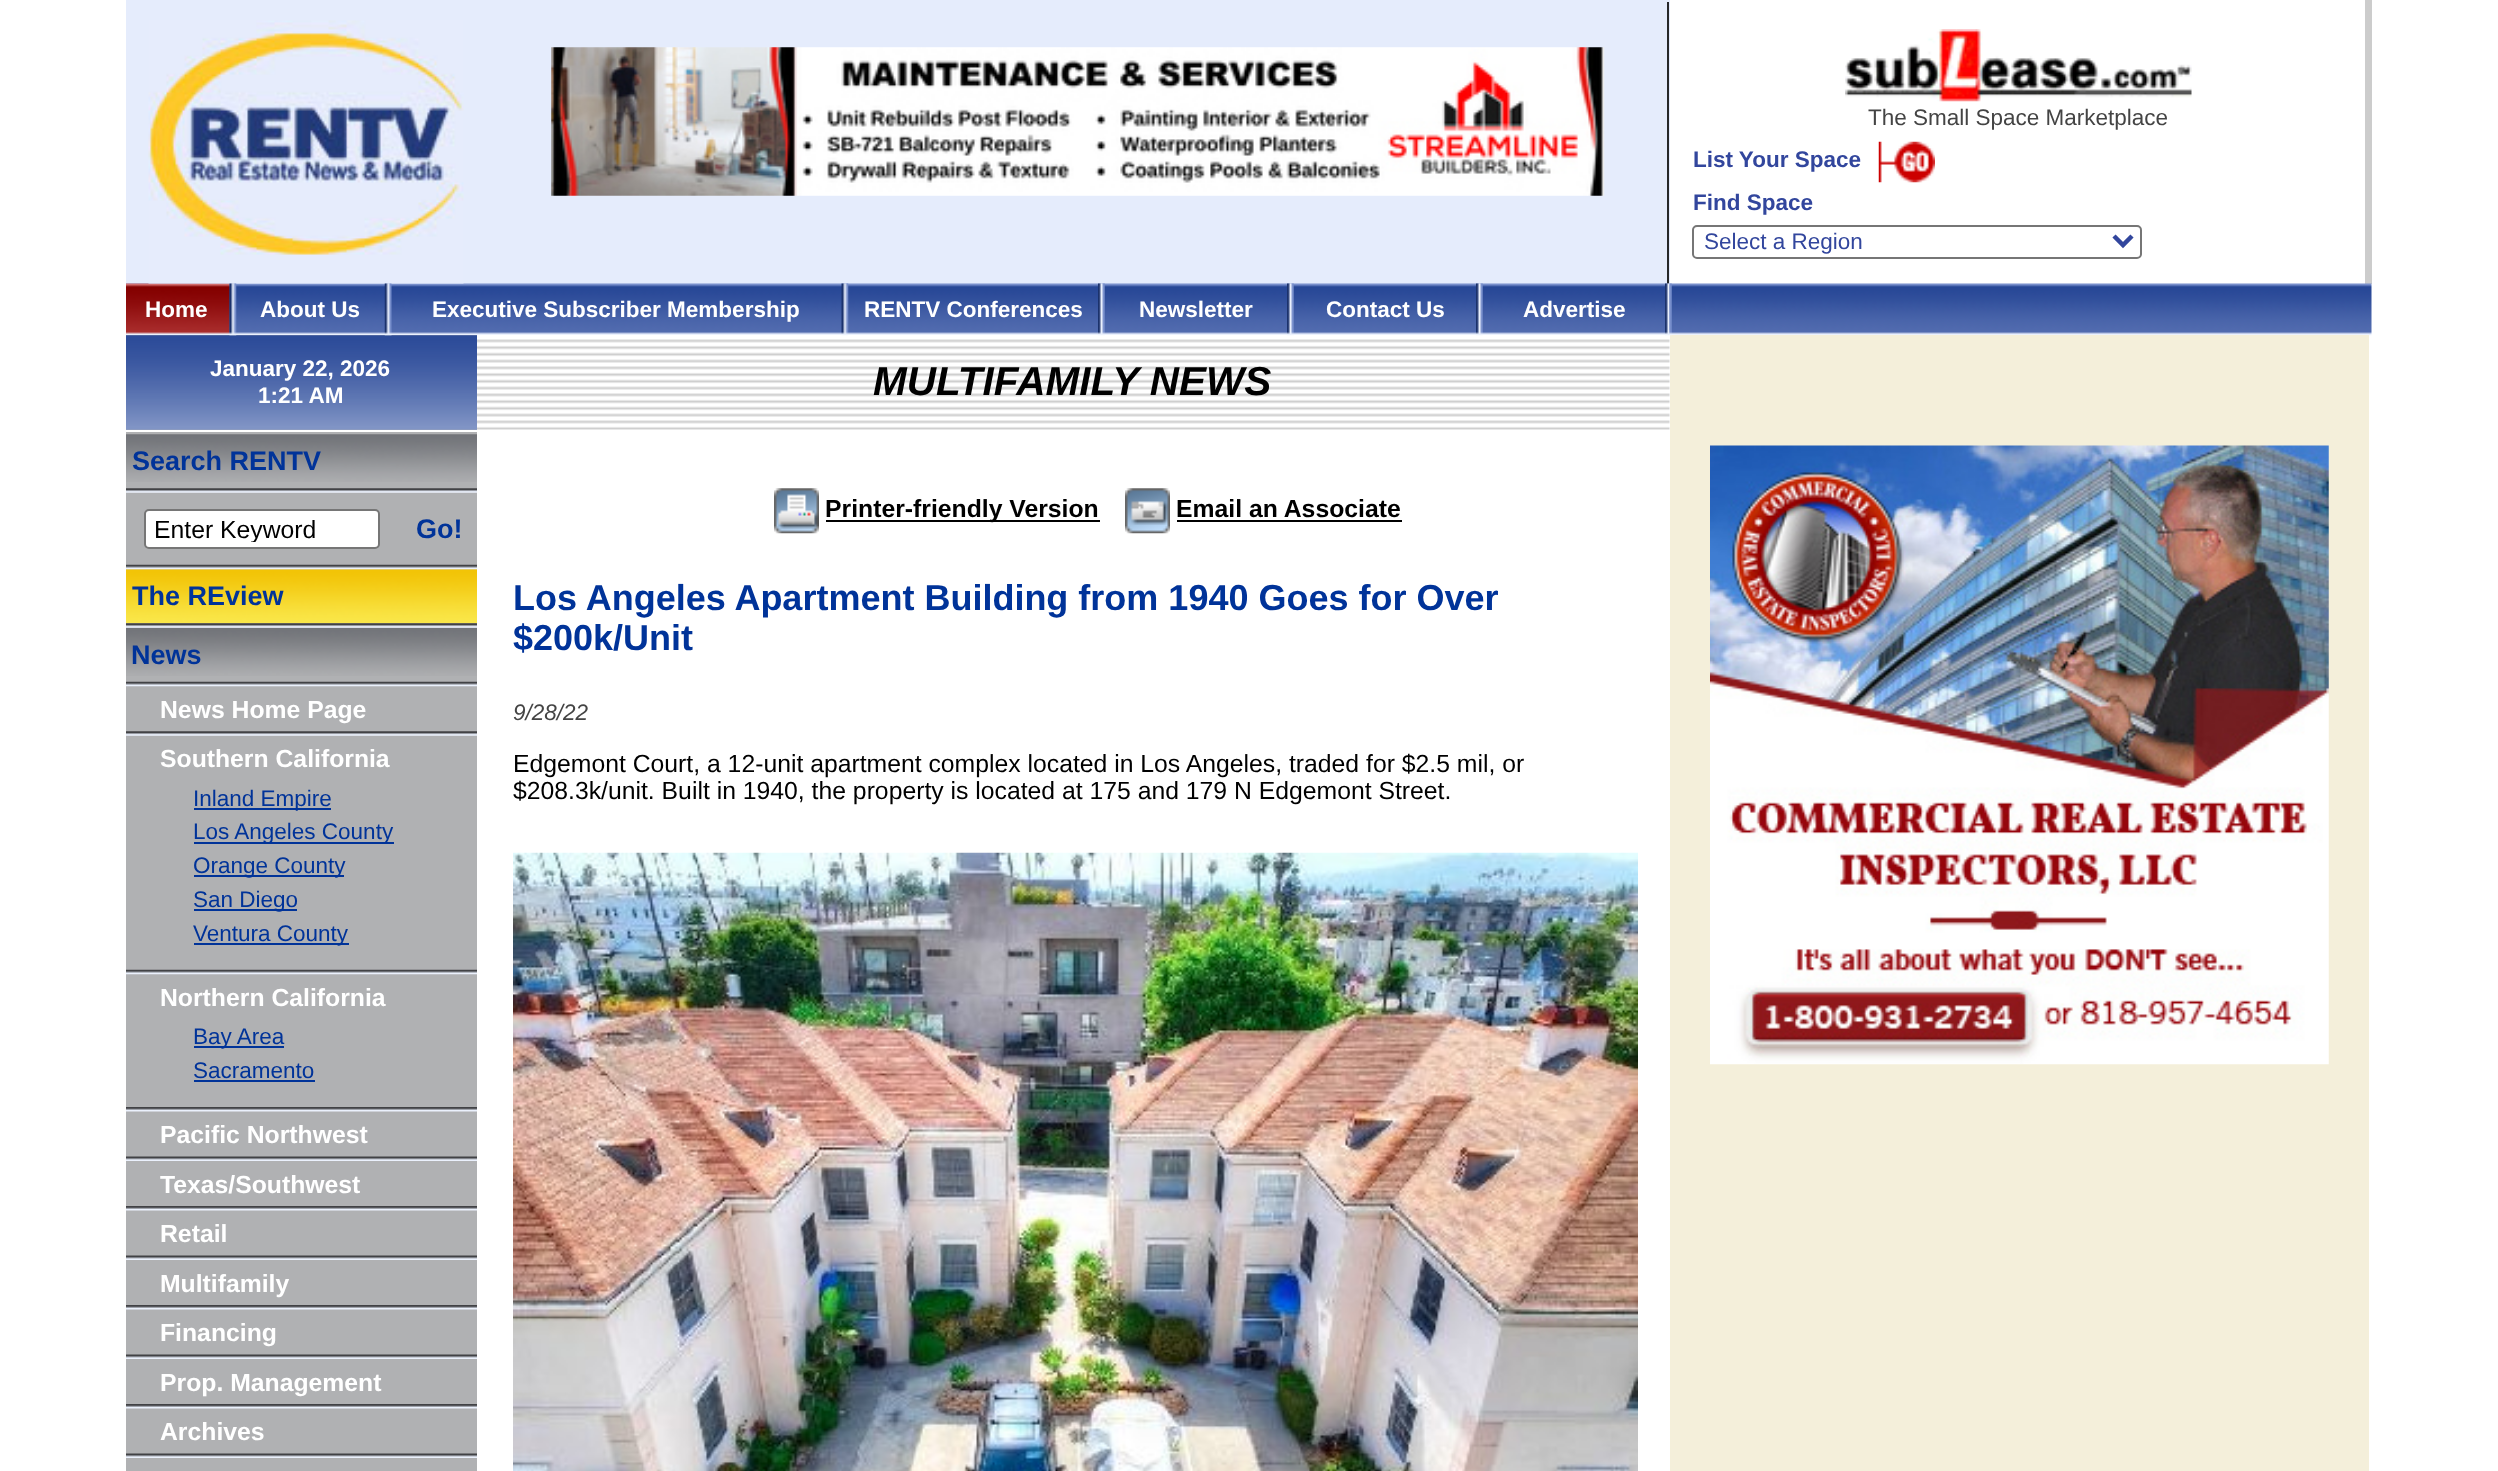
<svg xmlns="http://www.w3.org/2000/svg" width="2498" height="1471" viewBox="0 0 2498 1471">
  <style>
    .t1 { font: 22.5px Liberation Sans; fill: #444; }
    .t2 { font: bold 22.5px Liberation Sans; fill: #32469d; }
    .t3 { font: 22.5px Liberation Sans; fill: #32469d; }
    .t4 { font: bold 22.5px Liberation Sans; fill: #fff; }
    .t5 { font: bold 27px Liberation Sans; fill: #039; }
    .t6 { font: 24.75px Liberation Sans; fill: #000; }
    .t7 { font: bold 24.75px Liberation Sans; fill: #fff; }
    .t8 { font: 22.5px Liberation Sans; fill: #039; }
    .t9 { font: italic bold 40.5px Liberation Sans; fill: #000; }
    .t10 { font: bold 24.75px Liberation Sans; fill: #000; }
    .t11 { font: bold 36px Liberation Sans; fill: #039; }
    .t12 { font: italic 22.5px Liberation Sans; fill: #444; }
  </style>
  <defs>
    <clipPath id="clip1"><rect x="153" y="515" width="218" height="27"/></clipPath>
  </defs>
  <rect width="100%" height="100%" fill="#fff"/>
  <rect x="126" y="0" width="1544" height="284" fill="#e5ecfc"/>
  <rect x="1667" y="2" width="2" height="282" fill="#262729"/>
  <image x="126" y="283" width="1544" height="52" href="images/5.png"/>
  <image x="126" y="283" width="104" height="51" href="images/6.png"/>
  <image x="148" y="20" width="316" height="264" href="images/1.png"/>
  <image x="551" y="47" width="1054" height="149" href="images/2.png"/>
  <image x="1845" y="29" width="347" height="73" href="images/3.png"/>
  <text x="1868" y="125" class="t1">The Small Space Marketplace</text>
  <text x="1693" y="167" class="t2">List Your Space</text>
  <image x="1878" y="141" width="57" height="42" href="images/4.png"/>
  <text x="1693" y="210" class="t2">Find Space</text>
  <rect x="1693" y="226" width="448" height="32" rx="4" fill="none" stroke="#767676" stroke-width="2"/>
  <path d="M2114 236L2123 245L2132 236" fill="none" stroke="#32469d" stroke-width="4.5"/>
  <text x="1704" y="249" class="t3">Select a Region</text>
  <rect x="2365" y="0" width="7" height="284" fill="#ccc"/>
  <text x="145" y="317" class="t4">Home</text>
  <rect x="126" y="335" width="351" height="1136" fill="#b0b1b3"/>
  <image x="126" y="335" width="351" height="95" href="images/14.png"/>
  <image x="229" y="283" width="8" height="53" href="images/7.png"/>
  <text x="260" y="317" class="t4">About Us</text>
  <image x="384" y="283" width="8" height="53" href="images/8.png"/>
  <text x="432" y="317" class="t4">Executive Subscriber Membership</text>
  <image x="841" y="283" width="8" height="53" href="images/9.png"/>
  <text x="864" y="317" class="t4">RENTV Conferences</text>
  <image x="1098" y="283" width="7" height="53" href="images/10.png"/>
  <text x="1139" y="317" class="t4">Newsletter</text>
  <image x="1287" y="283" width="7" height="53" href="images/10.png"/>
  <text x="1326" y="317" class="t4">Contact Us</text>
  <image x="1476" y="283" width="7" height="53" href="images/10.png"/>
  <text x="1523" y="317" class="t4">Advertise</text>
  <image x="1669" y="283" width="703" height="53" href="images/12.png"/>
  <rect x="1669" y="335" width="1" height="1" fill="#fff"/>
  <image x="1665" y="283" width="5" height="53" href="images/11.png"/>
  <rect x="1670" y="335" width="699" height="1136" fill="#f4efda"/>
  <image x="1669" y="283" width="3" height="53" href="images/13.png"/>
  <text x="210" y="376" class="t4">January 22, 2026</text>
  <text x="258" y="403" class="t4">1:21 AM</text>
  <rect x="126" y="430" width="351" height="2" fill="#fff"/>
  <image x="126" y="434" width="351" height="48" href="images/15.png"/>
  <text x="132" y="470" class="t5">Search RENTV</text>
  <image x="126" y="488" width="351" height="5" href="images/16.png"/>
  <rect x="145" y="510" width="234" height="38" rx="4" fill="#fff" stroke="#767676" stroke-width="2"/>
  <g clip-path="url(#clip1)">
    <text x="154" y="538" class="t6">Enter Keyword</text>
  </g>
  <text x="416" y="538" class="t5">Go!</text>
  <image x="126" y="569" width="351" height="55" href="images/18.png"/>
  <image x="126" y="564" width="351" height="6" href="images/17.png"/>
  <text x="132" y="605" class="t5">The REview</text>
  <image x="126" y="627" width="351" height="49" href="images/20.png"/>
  <image x="126" y="623" width="351" height="5" href="images/19.png"/>
  <text x="131" y="664" class="t5">News</text>
  <image x="126" y="681" width="351" height="6" href="images/21.png"/>
  <text x="160" y="718" class="t7">News Home Page</text>
  <image x="126" y="731" width="351" height="5" href="images/16.png"/>
  <text x="160" y="767" class="t7">Southern California</text>
  <rect x="194" y="808" width="137" height="2" fill="#039"/>
  <text x="193" y="806" class="t8">Inland Empire</text>
  <rect x="194" y="842" width="200" height="2" fill="#039"/>
  <text x="193" y="839" class="t8">Los Angeles County</text>
  <rect x="194" y="875" width="150" height="2" fill="#039"/>
  <text x="193" y="873" class="t8">Orange County</text>
  <rect x="194" y="909" width="103" height="2" fill="#039"/>
  <text x="193" y="907" class="t8">San Diego</text>
  <rect x="194" y="943" width="155" height="2" fill="#039"/>
  <text x="193" y="941" class="t8">Ventura County</text>
  <image x="126" y="969" width="351" height="6" href="images/21.png"/>
  <text x="160" y="1006" class="t7">Northern California</text>
  <rect x="194" y="1046" width="90" height="2" fill="#039"/>
  <text x="193" y="1044" class="t8">Bay Area</text>
  <text x="193" y="1078" class="t8">Sacramento</text>
  <rect x="194" y="1080" width="121" height="2" fill="#039"/>
  <image x="126" y="1107" width="351" height="5" href="images/22.png"/>
  <text x="160" y="1143" class="t7">Pacific Northwest</text>
  <image x="126" y="1156" width="351" height="5" href="images/23.png"/>
  <text x="160" y="1193" class="t7">Texas/Southwest</text>
  <image x="126" y="1206" width="351" height="5" href="images/22.png"/>
  <text x="160" y="1242" class="t7">Retail</text>
  <image x="126" y="1255" width="351" height="5" href="images/23.png"/>
  <text x="160" y="1292" class="t7">Multifamily</text>
  <image x="126" y="1305" width="351" height="5" href="images/22.png"/>
  <text x="160" y="1341" class="t7">Financing</text>
  <image x="126" y="1354" width="351" height="5" href="images/23.png"/>
  <text x="160" y="1391" class="t7">Prop. Management</text>
  <image x="126" y="1404" width="351" height="5" href="images/22.png"/>
  <text x="160" y="1440" class="t7">Archives</text>
  <image x="126" y="1453" width="351" height="5" href="images/23.png"/>
  <image x="477" y="339" width="1193" height="91" href="images/24.png"/>
  <text x="873" y="395" class="t9">MULTIFAMILY NEWS</text>
  <image x="774" y="488" width="45" height="46" href="images/25.png"/>
  <rect x="826" y="520" width="274" height="2" fill="#000"/>
  <text x="825" y="517" class="t10">Printer-friendly Version</text>
  <image x="1125" y="488" width="45" height="46" href="images/26.png"/>
  <text x="1176" y="517" class="t10">Email an Associate</text>
  <rect x="1177" y="520" width="225" height="2" fill="#000"/>
  <text x="513" y="610" class="t11">Los Angeles Apartment Building from 1940 Goes for Over</text>
  <text x="513" y="650" class="t11">$200k/Unit</text>
  <text x="513" y="720" class="t12">9/28/22</text>
  <text x="513" y="772" class="t6">Edgemont Court, a 12-unit apartment complex located in Los Angeles, traded for $2.5 mil, or</text>
  <text x="513" y="799" class="t6">$208.3k/unit. Built in 1940, the property is located at 175 and 179 N Edgemont Street.</text>
  <image x="513" y="852" width="1125" height="619" href="images/27.png"/>
  <image x="1710" y="445" width="619" height="620" href="images/28.png"/>
</svg>
